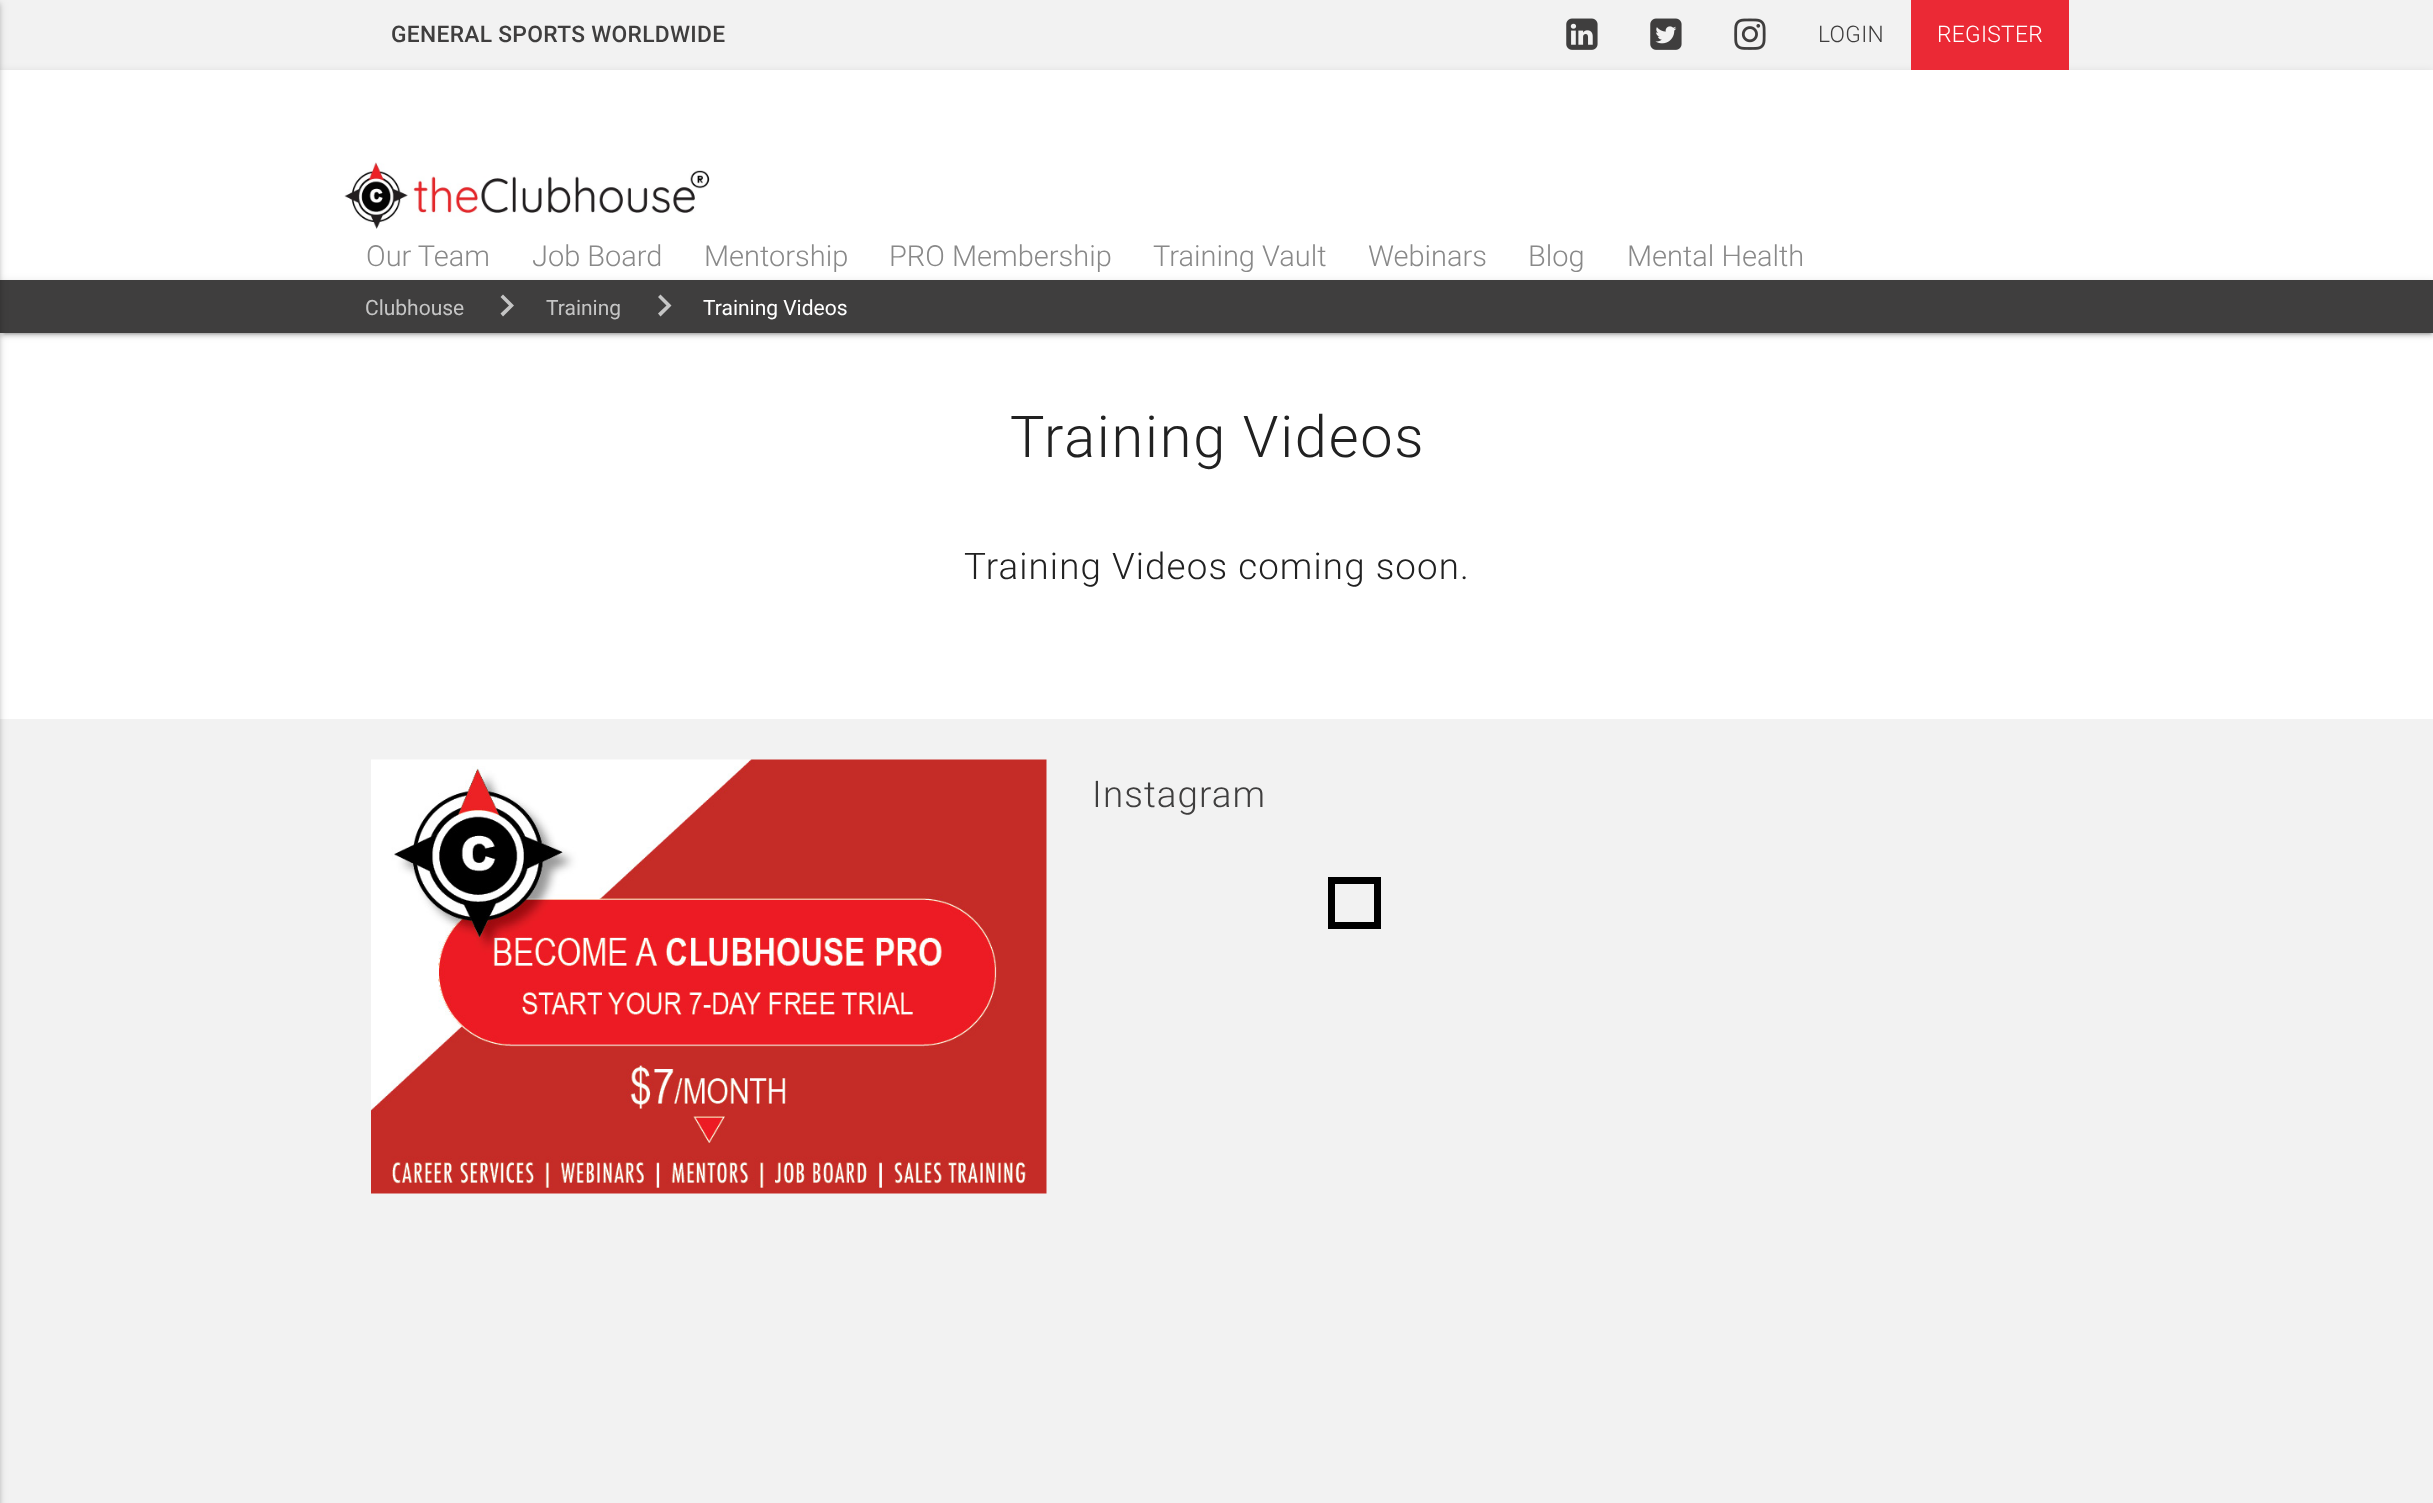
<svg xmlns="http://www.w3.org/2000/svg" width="2433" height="1503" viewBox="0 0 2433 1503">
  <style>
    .t1 { font: 500 22.8px Roboto; letter-spacing: 0.3px; fill: #3f3e3e; }
    .t2 { font: 300 22.8px Roboto; letter-spacing: 0.3px; fill: #3f3e3e; }
    .t3 { font: 300 22.8px Roboto; letter-spacing: 0.3px; fill: #fff; }
    .t4 { font: 300 29px Roboto; fill: #898989; }
    .t5 { font: 21px Roboto; fill: #c5c5c5; }
    .t6 { font: 21px Roboto; fill: #fff; }
    .t7 { font: 300 57.75px Roboto; letter-spacing: 1.75px; fill: #212121; }
    .t8 { font: 300 36.75px Roboto; letter-spacing: 1.1px; fill: #212121; }
    .t9 { font: 300 36.75px Roboto; letter-spacing: 1.1px; fill: #3f3e3e; }
  </style>
  <rect width="100%" height="100%" fill="#fff"/>
  <rect x="0" y="0" width="2433" height="70" fill="#f2f2f2"/>
  <text x="391" y="42" class="t1">GENERAL SPORTS WORLDWIDE</text>
  <image x="1566" y="18" width="32" height="32" href="images/1.png"/>
  <image x="1650" y="18" width="32" height="32" href="images/2.png"/>
  <image x="1734" y="18" width="32" height="32" href="images/3.png"/>
  <text x="1818" y="42" class="t2">LOGIN</text>
  <rect x="0" y="72" width="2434" height="210" fill="#0000001f" filter="blur(4.5px)"/>
  <rect x="1911" y="0" width="158" height="70" fill="#eb2935"/>
  <text x="1937" y="42" class="t3">REGISTER</text>
  <rect x="0" y="70" width="2433" height="210" fill="#fff"/>
  <rect x="4" y="289" width="2427" height="45" fill="#00000033" filter="blur(1px)"/>
  <rect x="0" y="282" width="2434" height="52" fill="#0000001f" filter="blur(4.5px)"/>
  <rect x="0" y="284" width="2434" height="52" fill="#00000024" filter="blur(2px)"/>
  <rect x="0" y="280" width="2433" height="53" fill="#3f3e3e"/>
  <rect x="0" y="719" width="2433" height="784" fill="#f2f2f2"/>
  <rect x="-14" y="2" width="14" height="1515" fill="#0000001f" filter="blur(4.5px)"/>
  <rect x="-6" y="4" width="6" height="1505" fill="#00000024" filter="blur(2px)"/>
  <image x="344" y="162" width="366" height="67" href="images/4.png"/>
  <text x="366" y="266" class="t4">Our Team</text>
  <text x="532" y="266" class="t4">Job Board</text>
  <text x="704" y="266" class="t4">Mentorship</text>
  <text x="889" y="266" class="t4">PRO Membership</text>
  <text x="1153" y="266" class="t4">Training Vault</text>
  <text x="1368" y="266" class="t4">Webinars</text>
  <text x="1528" y="266" class="t4">Blog</text>
  <text x="1627" y="266" class="t4">Mental Health</text>
  <text x="365" y="315" class="t5">Clubhouse</text>
  <path d="M503 294.5L514 305.5L503 316.5L500.5 313.5L509 305.5L500.5 297Z" fill="#c5c5c5"/>
  <text x="546" y="315" class="t5">Training</text>
  <path d="M660.5 294.5L671.5 305.5L660.5 316.5L658 313.5L666.5 305.5L658 297Z" fill="#c5c5c5"/>
  <text x="703" y="315" class="t6">Training Videos</text>
  <text x="1010" y="457" class="t7">Training Videos</text>
  <text x="964" y="579" class="t8">Training Videos coming soon.</text>
  <image x="371" y="759" width="676" height="435" href="images/5.png"/>
  <text x="1092" y="807" class="t9">Instagram</text>
  <rect x="1331.5" y="880.5" width="46" height="45" fill="none" stroke="#000" stroke-width="7"/>
</svg>
